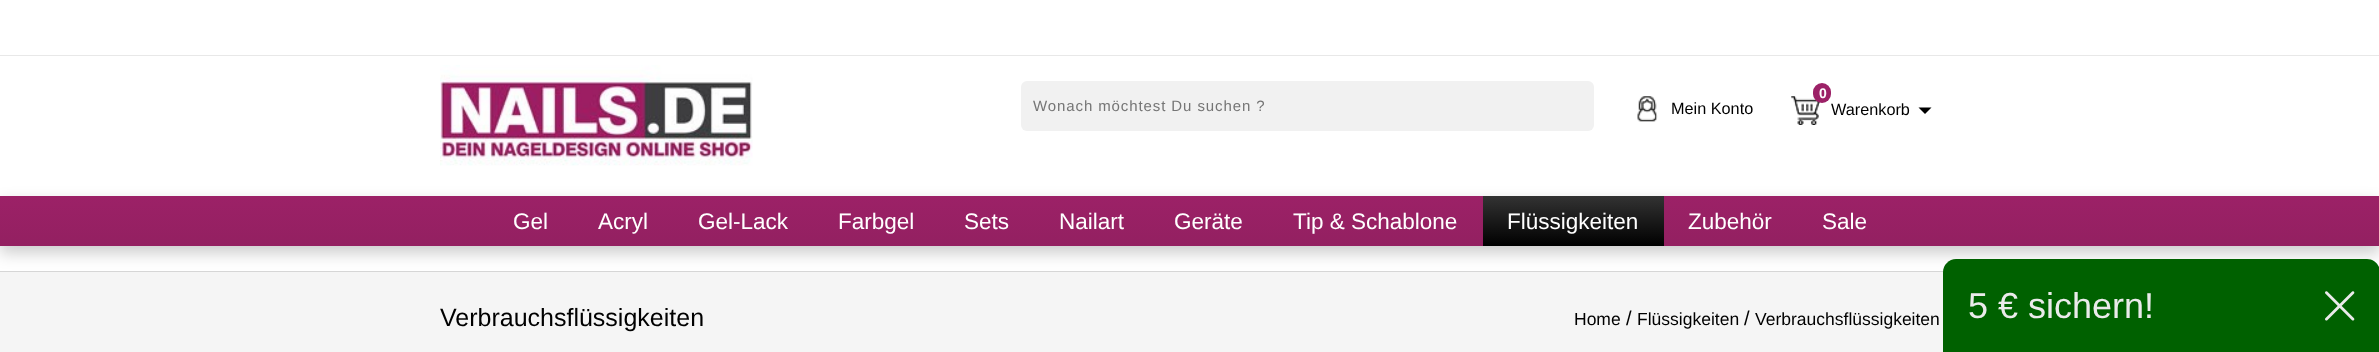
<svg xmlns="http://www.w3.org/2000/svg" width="2379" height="352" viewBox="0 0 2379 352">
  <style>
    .t1 { font: 15px Liberation Sans; letter-spacing: 0.9px; fill: #757575; }
    .t2 { font: 16.25px Liberation Sans; fill: #000; }
    .t3 { font: bold 14px Liberation Sans; fill: #fff; }
    .t4 { font: 22.5px Liberation Sans; fill: #fff; }
    .t5 { font: 25px Liberation Sans; fill: #000; }
    .t6 { font: 17.5px Liberation Sans; fill: #000; }
    .t7 { font: 20px Liberation Sans; fill: #000; }
    .t8 { font: 36px Liberation Sans; fill: #ebebeb; }
  </style>
  <defs>
    <linearGradient id="g1" gradientUnits="userSpaceOnUse" x1="1190" y1="196" x2="1190" y2="246"><stop offset="0" stop-color="#9c2167"/><stop offset="1" stop-color="#932061"/></linearGradient>
    <linearGradient id="g2" gradientUnits="userSpaceOnUse" x1="1573" y1="196" x2="1573" y2="246"><stop offset="0" stop-color="#333"/><stop offset="1" stop-color="#000"/></linearGradient>
  </defs>
  <rect width="100%" height="100%" fill="#fff"/>
  <rect x="0" y="55" width="2379" height="1" fill="#e8e8e8"/>
  <image x="440" y="65" width="313" height="101" href="images/1.png"/>
  <rect x="1021" y="81" width="573" height="50" rx="6" fill="#f1f1f1"/>
  <text x="1033" y="111" class="t1">Wonach möchtest Du suchen ?</text>
  <image x="1637" y="96" width="21" height="26" href="images/2.png"/>
  <text x="1671" y="114" class="t2">Mein Konto</text>
  <image x="1791" y="96" width="29" height="29" href="images/3.png"/>
  <rect x="1813" y="83" width="18" height="20" rx="9" fill="#9c2167"/>
  <text x="1819" y="98" class="t3">0</text>
  <text x="1831" y="115" class="t2">Warenkorb</text>
  <path d="M1918.5 107.5H1931.5L1925 114Z" fill="#000"/>
  <rect x="0" y="272" width="1943" height="80" fill="#f5f5f5"/>
  <rect x="0" y="271" width="1944" height="1" fill="#d6d6d6"/>
  <rect x="0" y="203" width="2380" height="50" fill="#00000033" filter="blur(8px)"/>
  <rect x="0" y="196" width="2379" height="50" fill="url(#g1)"/>
  <text x="513" y="229" class="t4">Gel</text>
  <text x="598" y="229" class="t4">Acryl</text>
  <text x="698" y="229" class="t4">Gel-Lack</text>
  <text x="838" y="229" class="t4">Farbgel</text>
  <text x="964" y="229" class="t4">Sets</text>
  <text x="1059" y="229" class="t4">Nailart</text>
  <text x="1174" y="229" class="t4">Geräte</text>
  <text x="1293" y="229" class="t4">Tip &amp; Schablone</text>
  <rect x="1483" y="196" width="181" height="50" fill="url(#g2)"/>
  <text x="1507" y="229" class="t4">Flüssigkeiten</text>
  <text x="1688" y="229" class="t4">Zubehör</text>
  <text x="1822" y="229" class="t4">Sale</text>
  <text x="440" y="326" class="t5">Verbrauchsflüssigkeiten</text>
  <text x="1574" y="325" class="t6">Home</text>
  <text x="1626" y="325" class="t7">/</text>
  <text x="1637" y="325" class="t6">Flüssigkeiten</text>
  <text x="1744" y="325" class="t7">/</text>
  <text x="1755" y="325" class="t6">Verbrauchsflüssigkeiten</text>
  <path d="M1956 259H2367C2374 259 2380 265 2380 272V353H1943V272C1943 265 1949 259 1956 259Z" fill="#006100"/>
  <text x="1968" y="318" class="t8">5 € sichern!</text>
  <image x="2325" y="291" width="30" height="30" href="images/4.png"/>
</svg>
